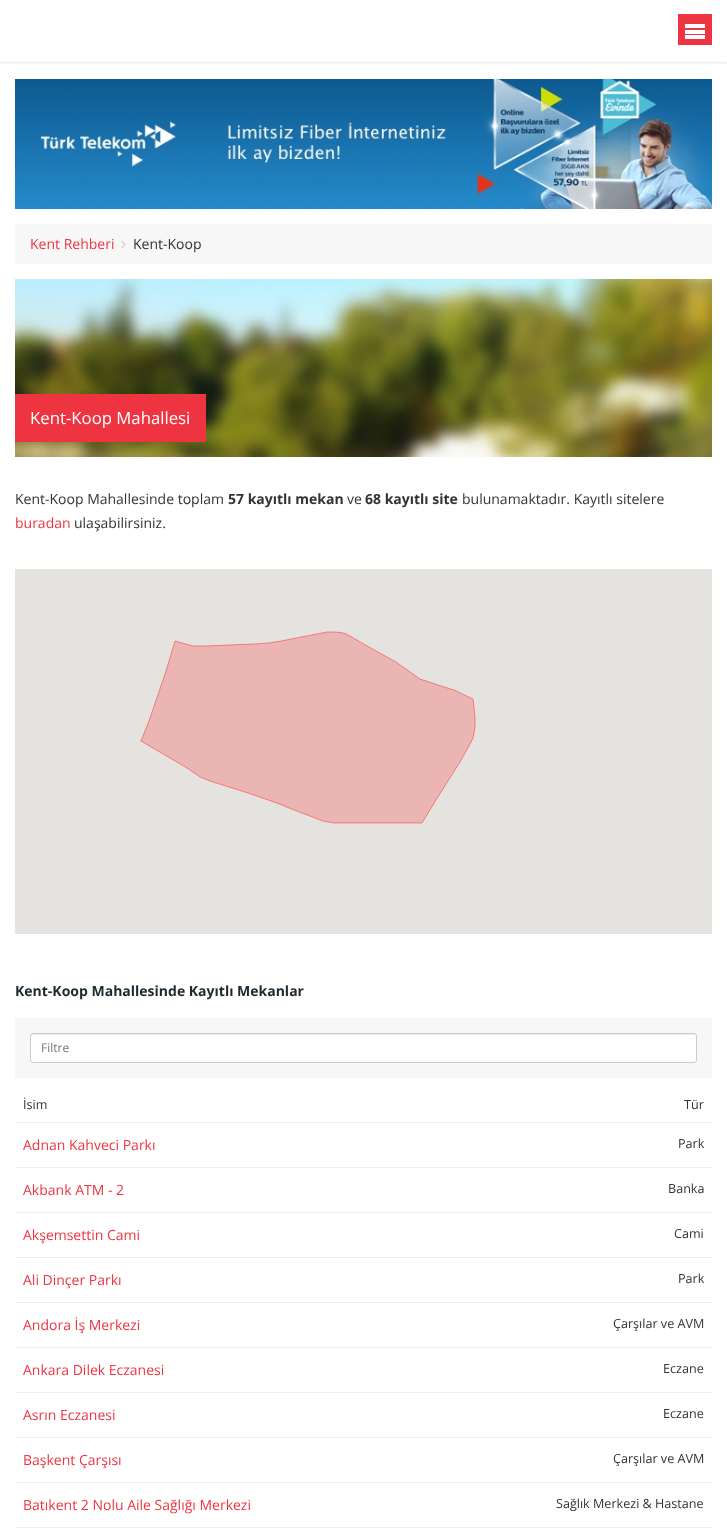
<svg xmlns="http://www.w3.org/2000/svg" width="727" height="1537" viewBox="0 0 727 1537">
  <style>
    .t1 { font: 14px Open Sans; fill: #ee3440; }
    .t2 { font: 14px Open Sans; fill: #333; }
    .t3 { font: 16.75px Open Sans; fill: #fff; }
    .t4 { font: bold 14px Open Sans; fill: #333; }
    .t5 { font: bold 14px Open Sans; fill: #1e2a30; }
    .t6 { font: 12px Open Sans; fill: #757575; }
    .t7 { font: 12.6px Open Sans; fill: #333; }
  </style>
  <defs>
    <clipPath id="clip1"><rect x="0" y="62" width="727" height="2"/></clipPath>
  </defs>
  <rect width="100%" height="100%" fill="#fff"/>
  <g clip-path="url(#clip1)">
    <rect x="0" y="1" width="727" height="62" fill="#0000001a" filter="blur(1px)"/>
  </g>
  <rect x="678" y="14" width="34" height="31" fill="#ee3440"/>
  <rect x="685" y="35" width="20" height="4" fill="#fff"/>
  <rect x="685" y="30" width="20" height="4" fill="#fff"/>
  <rect x="685" y="24" width="20" height="4" fill="#fff"/>
  <image x="15" y="79" width="697" height="130" href="images/1.png"/>
  <rect x="15" y="224" width="697" height="40" rx="3" fill="#f7f7f7"/>
  <text x="30" y="249" class="t1">Kent Rehberi</text>
  <image x="121" y="240" width="5" height="9" href="images/2.png"/>
  <text x="133" y="249" class="t2">Kent-Koop</text>
  <image x="15" y="279" width="697" height="178" href="images/3.png"/>
  <rect x="15" y="394" width="191" height="48" fill="#ee3440"/>
  <text x="30" y="424" class="t3">Kent-Koop Mahallesi</text>
  <text x="15" y="504" class="t2">Kent-Koop Mahallesinde toplam</text>
  <text x="228" y="504" class="t4">57 kayıtlı mekan</text>
  <text x="347" y="504" class="t2">ve</text>
  <text x="365" y="504" class="t4">68 kayıtlı site</text>
  <text x="462" y="504" class="t2">bulunamaktadır. Kayıtlı sitelere</text>
  <text x="15" y="528" class="t1">buradan</text>
  <text x="74" y="528" class="t2">ulaşabilirsiniz.</text>
  <rect x="15" y="569" width="697" height="365" fill="#e5e3df"/>
  <image x="140" y="639" width="145" height="149" href="images/4.png"/>
  <image x="285" y="631" width="191" height="157" href="images/5.png"/>
  <image x="231" y="788" width="54" height="19" href="images/6.png"/>
  <image x="285" y="788" width="159" height="36" href="images/7.png"/>
  <text x="15" y="996" class="t5">Kent-Koop Mahallesinde Kayıtlı Mekanlar</text>
  <rect x="15" y="1018" width="697" height="60" fill="#f7f7f7"/>
  <rect x="30" y="1033" width="667" height="30" rx="3" fill="#fff"/>
  <path d="M33 1035H694C695 1035 696 1036 696 1037C696 1036 696 1034 694 1034H33C31 1034 31 1036 31 1037C31 1036 32 1035 33 1035Z" fill="#ececec"/>
  <rect x="30.5" y="1033.5" width="666" height="29" rx="2.5" fill="none" stroke="#ccc"/>
  <text x="41" y="1052" class="t6">Filtre</text>
  <text x="23" y="1109" class="t7">İsim</text>
  <text x="684" y="1109" class="t7">Tür</text>
  <text x="23" y="1150" class="t1">Adnan Kahveci Parkı</text>
  <rect x="15" y="1122" width="697" height="1" fill="#eee"/>
  <text x="678" y="1148" class="t7">Park</text>
  <text x="23" y="1195" class="t1">Akbank ATM - 2</text>
  <rect x="15" y="1167" width="697" height="1" fill="#eee"/>
  <text x="668" y="1193" class="t7">Banka</text>
  <text x="23" y="1240" class="t1">Akşemsettin Cami</text>
  <rect x="15" y="1212" width="697" height="1" fill="#eee"/>
  <text x="674" y="1238" class="t7">Cami</text>
  <text x="23" y="1285" class="t1">Ali Dinçer Parkı</text>
  <rect x="15" y="1257" width="697" height="1" fill="#eee"/>
  <text x="678" y="1283" class="t7">Park</text>
  <text x="23" y="1330" class="t1">Andora İş Merkezi</text>
  <rect x="15" y="1302" width="697" height="1" fill="#eee"/>
  <text x="613" y="1328" class="t7">Çarşılar ve AVM</text>
  <text x="23" y="1375" class="t1">Ankara Dilek Eczanesi</text>
  <rect x="15" y="1347" width="697" height="1" fill="#eee"/>
  <text x="663" y="1373" class="t7">Eczane</text>
  <text x="23" y="1420" class="t1">Asrın Eczanesi</text>
  <rect x="15" y="1392" width="697" height="1" fill="#eee"/>
  <text x="663" y="1418" class="t7">Eczane</text>
  <text x="23" y="1465" class="t1">Başkent Çarşısı</text>
  <rect x="15" y="1437" width="697" height="1" fill="#eee"/>
  <text x="613" y="1463" class="t7">Çarşılar ve AVM</text>
  <text x="23" y="1510" class="t1">Batıkent 2 Nolu Aile Sağlığı Merkezi</text>
  <rect x="15" y="1482" width="697" height="1" fill="#eee"/>
  <text x="556" y="1508" class="t7">Sağlık Merkezi &amp; Hastane</text>
  <rect x="15" y="1527" width="697" height="1" fill="#eee"/>
</svg>
